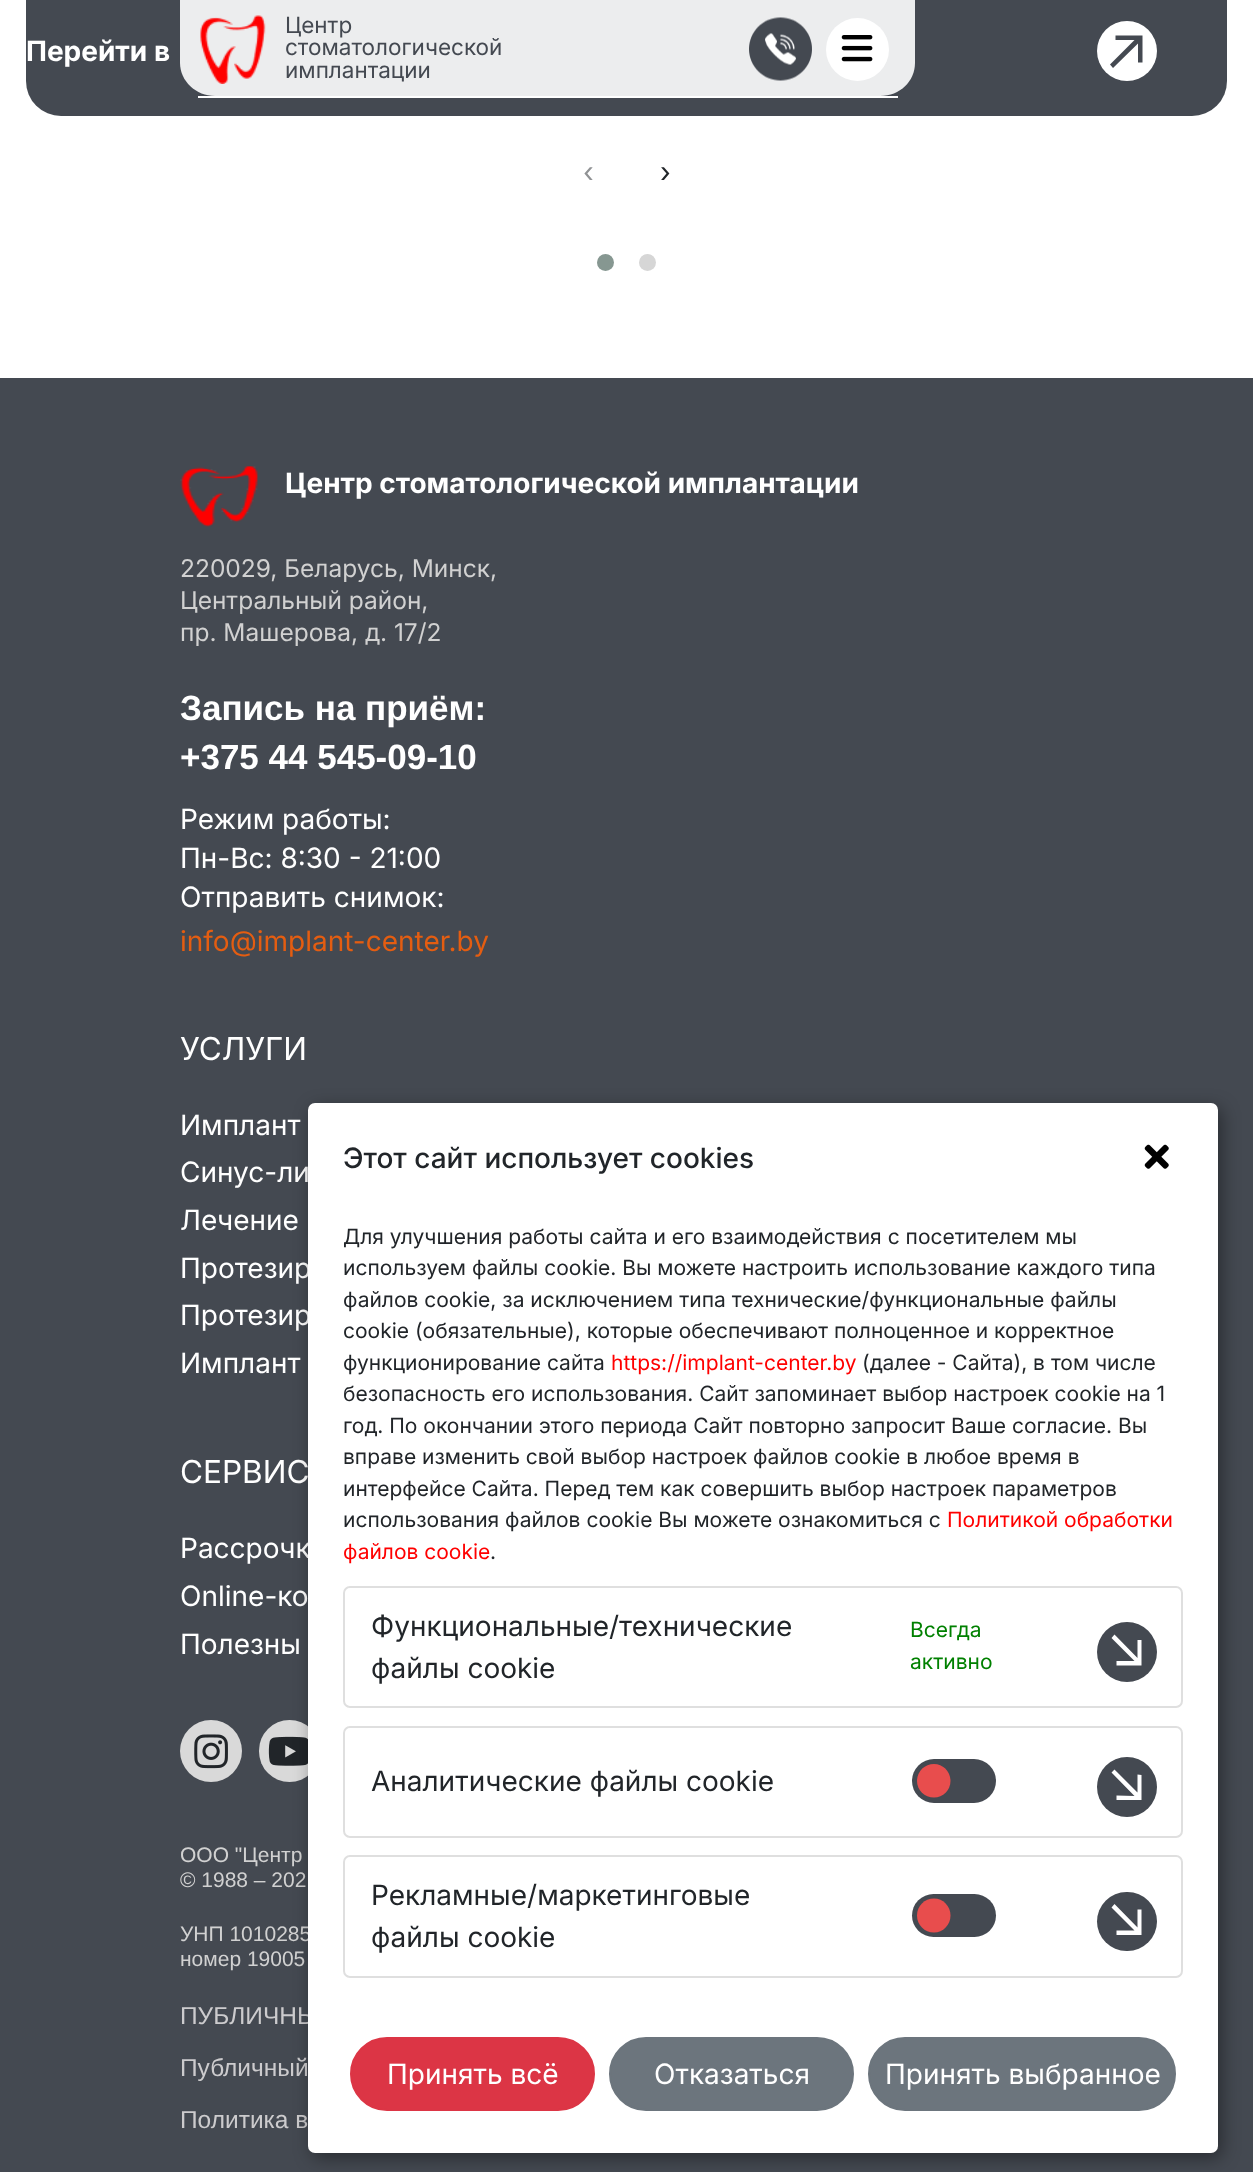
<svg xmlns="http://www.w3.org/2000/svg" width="1253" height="2172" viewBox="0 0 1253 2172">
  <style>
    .t1 { font: 22.5px Inter; fill: #444951; }
    .t2 { font: bold 28px Inter; fill: #fff; }
    .t3 { font: 28px Inter; fill: #909294; }
    .t4 { font: 28px Inter; fill: #212529; }
    .t5 { font: 24.5px Inter; fill: #d1d1d1; }
    .t6 { font: bold 35px Liberation Sans; fill: #fff; }
    .t7 { font: 28px Inter; fill: #fff; }
    .t8 { font: 28px Inter; fill: #e45d11; }
    .t9 { font: 31.5px Inter; fill: #fff; }
    .t10 { font: 21px Liberation Sans; fill: #d1d1d1; }
    .t11 { font: 24.5px Liberation Sans; fill: #cccbcd; }
    .t12 { font: 500 28px Inter; fill: #212529; }
    .t13 { font: 21px Inter; fill: #212529; }
    .t14 { font: 21px Inter; fill: #f00; }
    .t15 { font: 21px Inter; fill: #008000; }
  </style>
  <rect width="100%" height="100%" fill="#fff"/>
  <rect x="26" y="-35" width="1201" height="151" rx="35" fill="#444951"/>
  <path d="M180 0H915V63C915 81 900 96 880 96H215C196 96 180 81 180 63Z" fill="#ecedee"/>
  <rect x="198" y="96" width="700" height="2" fill="#fff"/>
  <image x="200" y="15" width="66" height="69" href="images/1.png"/>
  <text x="285" y="33" class="t1">Центр</text>
  <text x="285" y="55" class="t1">стоматологической</text>
  <text x="285" y="78" class="t1">имплантации</text>
  <image x="749" y="17" width="63" height="64" href="images/2.png"/>
  <circle cx="857.5" cy="49.5" r="31.5" fill="#fff"/>
  <image x="841" y="35" width="32" height="27" href="images/3.png"/>
  <text x="26" y="61" class="t2">Перейти в</text>
  <circle cx="1127" cy="51" r="30" fill="#fff"/>
  <path d="M1142.5 62.5H1138V43.5L1113 68L1110 64.5L1134.5 40H1115.5V35.5H1142.5Z" fill="#444951"/>
  <text x="583" y="182" class="t3">‹</text>
  <text x="660" y="182" class="t4">›</text>
  <circle cx="605.5" cy="262.5" r="8.5" fill="#869791"/>
  <circle cx="647.5" cy="262.5" r="8.5" fill="#d6d6d6"/>
  <rect x="0" y="378" width="1253" height="1794" fill="#444951"/>
  <image x="180" y="466" width="78" height="61" href="images/4.png"/>
  <text x="285" y="493" class="t2">Центр стоматологической имплантации</text>
  <text x="180" y="577" class="t5">220029, Беларусь, Минск,</text>
  <text x="180" y="609" class="t5">Центральный район,</text>
  <text x="180" y="641" class="t5">пр. Машерова, д. 17/2</text>
  <text x="180" y="720" class="t6">Запись на приём:</text>
  <text x="180" y="769" class="t6">+375 44 545-09-10</text>
  <text x="180" y="829" class="t7">Режим работы:</text>
  <text x="180" y="868" class="t7">Пн-Вс: 8:30 - 21:00</text>
  <text x="180" y="907" class="t7">Отправить снимок:</text>
  <text x="180" y="951" class="t8">info@implant-center.by</text>
  <text x="180" y="1060" class="t9">УСЛУГИ</text>
  <text x="180" y="1135" class="t7">Имплант</text>
  <text x="180" y="1182" class="t7">Синус-ли</text>
  <text x="180" y="1230" class="t7">Лечение</text>
  <text x="180" y="1278" class="t7">Протезир</text>
  <text x="180" y="1325" class="t7">Протезир</text>
  <text x="180" y="1373" class="t7">Имплант</text>
  <text x="180" y="1483" class="t9">СЕРВИС</text>
  <text x="180" y="1558" class="t7">Рассрочк</text>
  <text x="180" y="1606" class="t7">Online-ко</text>
  <text x="180" y="1654" class="t7">Полезны</text>
  <circle cx="211" cy="1751" r="31" fill="#d9d9d9"/>
  <image x="194" y="1734" width="34" height="35" href="images/5.png"/>
  <rect x="259" y="1720" width="61" height="62" rx="30.5" fill="#d9d9d9"/>
  <image x="268" y="1736" width="40" height="30" href="images/6.png"/>
  <text x="180" y="1862" class="t10">ООО "Центр</text>
  <text x="180" y="1887" class="t10">© 1988 – 202</text>
  <text x="180" y="1941" class="t10">УНП 1010285</text>
  <text x="180" y="1966" class="t10">номер 19005</text>
  <text x="180" y="2024" class="t11">ПУБЛИЧНЫ</text>
  <text x="180" y="2076" class="t11">Публичный</text>
  <text x="180" y="2128" class="t11">Политика в</text>
  <rect x="312" y="1108" width="910" height="1050" rx="7" fill="#00000066" filter="blur(9px)"/>
  <rect x="308" y="1103" width="910" height="1050" rx="7" fill="#fff"/>
  <text x="343" y="1168" class="t12">Этот сайт использует cookies</text>
  <image x="1144" y="1144" width="25" height="25" href="images/7.png"/>
  <text x="343" y="1244" class="t13">Для улучшения работы сайта и его взаимодействия с посетителем мы</text>
  <text x="343" y="1275" class="t13">используем файлы cookie. Вы можете настроить использование каждого типа</text>
  <text x="343" y="1307" class="t13">файлов cookie, за исключением типа технические/функциональные файлы</text>
  <text x="343" y="1338" class="t13">cookie (обязательные), которые обеспечивают полноценное и корректное</text>
  <text x="343" y="1370" class="t13">функционирование сайта</text>
  <text x="611" y="1370" class="t14">https://implant-center.by</text>
  <text x="862" y="1370" class="t13">(далее - Сайта), в том числе</text>
  <text x="343" y="1401" class="t13">безопасность его использования. Сайт запоминает выбор настроек cookie на 1</text>
  <text x="343" y="1433" class="t13">год. По окончании этого периода Сайт повторно запросит Ваше согласие. Вы</text>
  <text x="343" y="1464" class="t13">вправе изменить свой выбор настроек файлов cookie в любое время в</text>
  <text x="343" y="1496" class="t13">интерфейсе Сайта. Перед тем как совершить выбор настроек параметров</text>
  <text x="343" y="1527" class="t13">использования файлов cookie Вы можете ознакомиться с</text>
  <text x="947" y="1527" class="t14">Политикой обработки</text>
  <text x="343" y="1559" class="t14">файлов cookie</text>
  <text x="490" y="1559" class="t13">.</text>
  <rect x="344" y="1587" width="838" height="120" rx="6" fill="none" stroke="#dfdfdf" stroke-width="2"/>
  <text x="371" y="1636" class="t4">Функциональные/технические</text>
  <text x="371" y="1678" class="t4">файлы cookie</text>
  <text x="910" y="1637" class="t15">Всегда</text>
  <text x="910" y="1669" class="t15">активно</text>
  <circle cx="1127" cy="1652" r="30" fill="#444951"/>
  <path d="M1141.5 1640H1137.5V1658L1114.5 1634.5L1111.5 1638L1134.5 1661H1116.5V1665.5H1141.5Z" fill="#fff"/>
  <rect x="344" y="1727" width="838" height="110" rx="6" fill="none" stroke="#dfdfdf" stroke-width="2"/>
  <text x="371" y="1791" class="t4">Аналитические файлы cookie</text>
  <rect x="912" y="1759" width="84" height="44" rx="22" fill="#444951"/>
  <path d="M950.5 1781C950.5 1790 943 1797.5 934 1797.5C924.5 1797.5 917 1790 917 1781C917 1771.5 924.5 1764 934 1764C943 1764 950.5 1771.5 950.5 1781Z" fill="#e84d4d"/>
  <circle cx="1127" cy="1787" r="30" fill="#444951"/>
  <path d="M1141.5 1775L1137.5 1774.5V1792.5L1114.5 1769.5L1111.5 1772.5L1134.5 1796L1116.5 1795.5V1800H1141.5Z" fill="#fff"/>
  <rect x="344" y="1856" width="838" height="121" rx="6" fill="none" stroke="#dfdfdf" stroke-width="2"/>
  <text x="371" y="1905" class="t4">Рекламные/маркетинговые</text>
  <text x="371" y="1947" class="t4">файлы cookie</text>
  <rect x="912" y="1894" width="84" height="43" rx="21.5" fill="#444951"/>
  <path d="M950.5 1915.5C950.5 1925 943 1932.5 934 1932.5C924.5 1932.5 917 1925 917 1915.5C917 1906 924.5 1898.5 934 1898.5C943 1898.5 950.5 1906 950.5 1915.5Z" fill="#e84d4d"/>
  <rect x="1097" y="1892" width="60" height="59" rx="29.5" fill="#444951"/>
  <path d="M1141.5 1909.5H1137.5V1927.5L1114.5 1904L1111.5 1907.5L1134.5 1930.5H1116.5V1935H1141.5Z" fill="#fff"/>
  <rect x="351" y="2038" width="243" height="72" rx="36" fill="#dc3545" stroke="#dc3545" stroke-width="2"/>
  <text x="387" y="2084" class="t7">Принять всё</text>
  <rect x="610" y="2038" width="243" height="72" rx="36" fill="#6c757d" stroke="#6c757d" stroke-width="2"/>
  <text x="654" y="2084" class="t7">Отказаться</text>
  <rect x="869" y="2038" width="306" height="72" rx="36" fill="#6c757d" stroke="#6c757d" stroke-width="2"/>
  <text x="885" y="2084" class="t7">Принять выбранное</text>
</svg>
